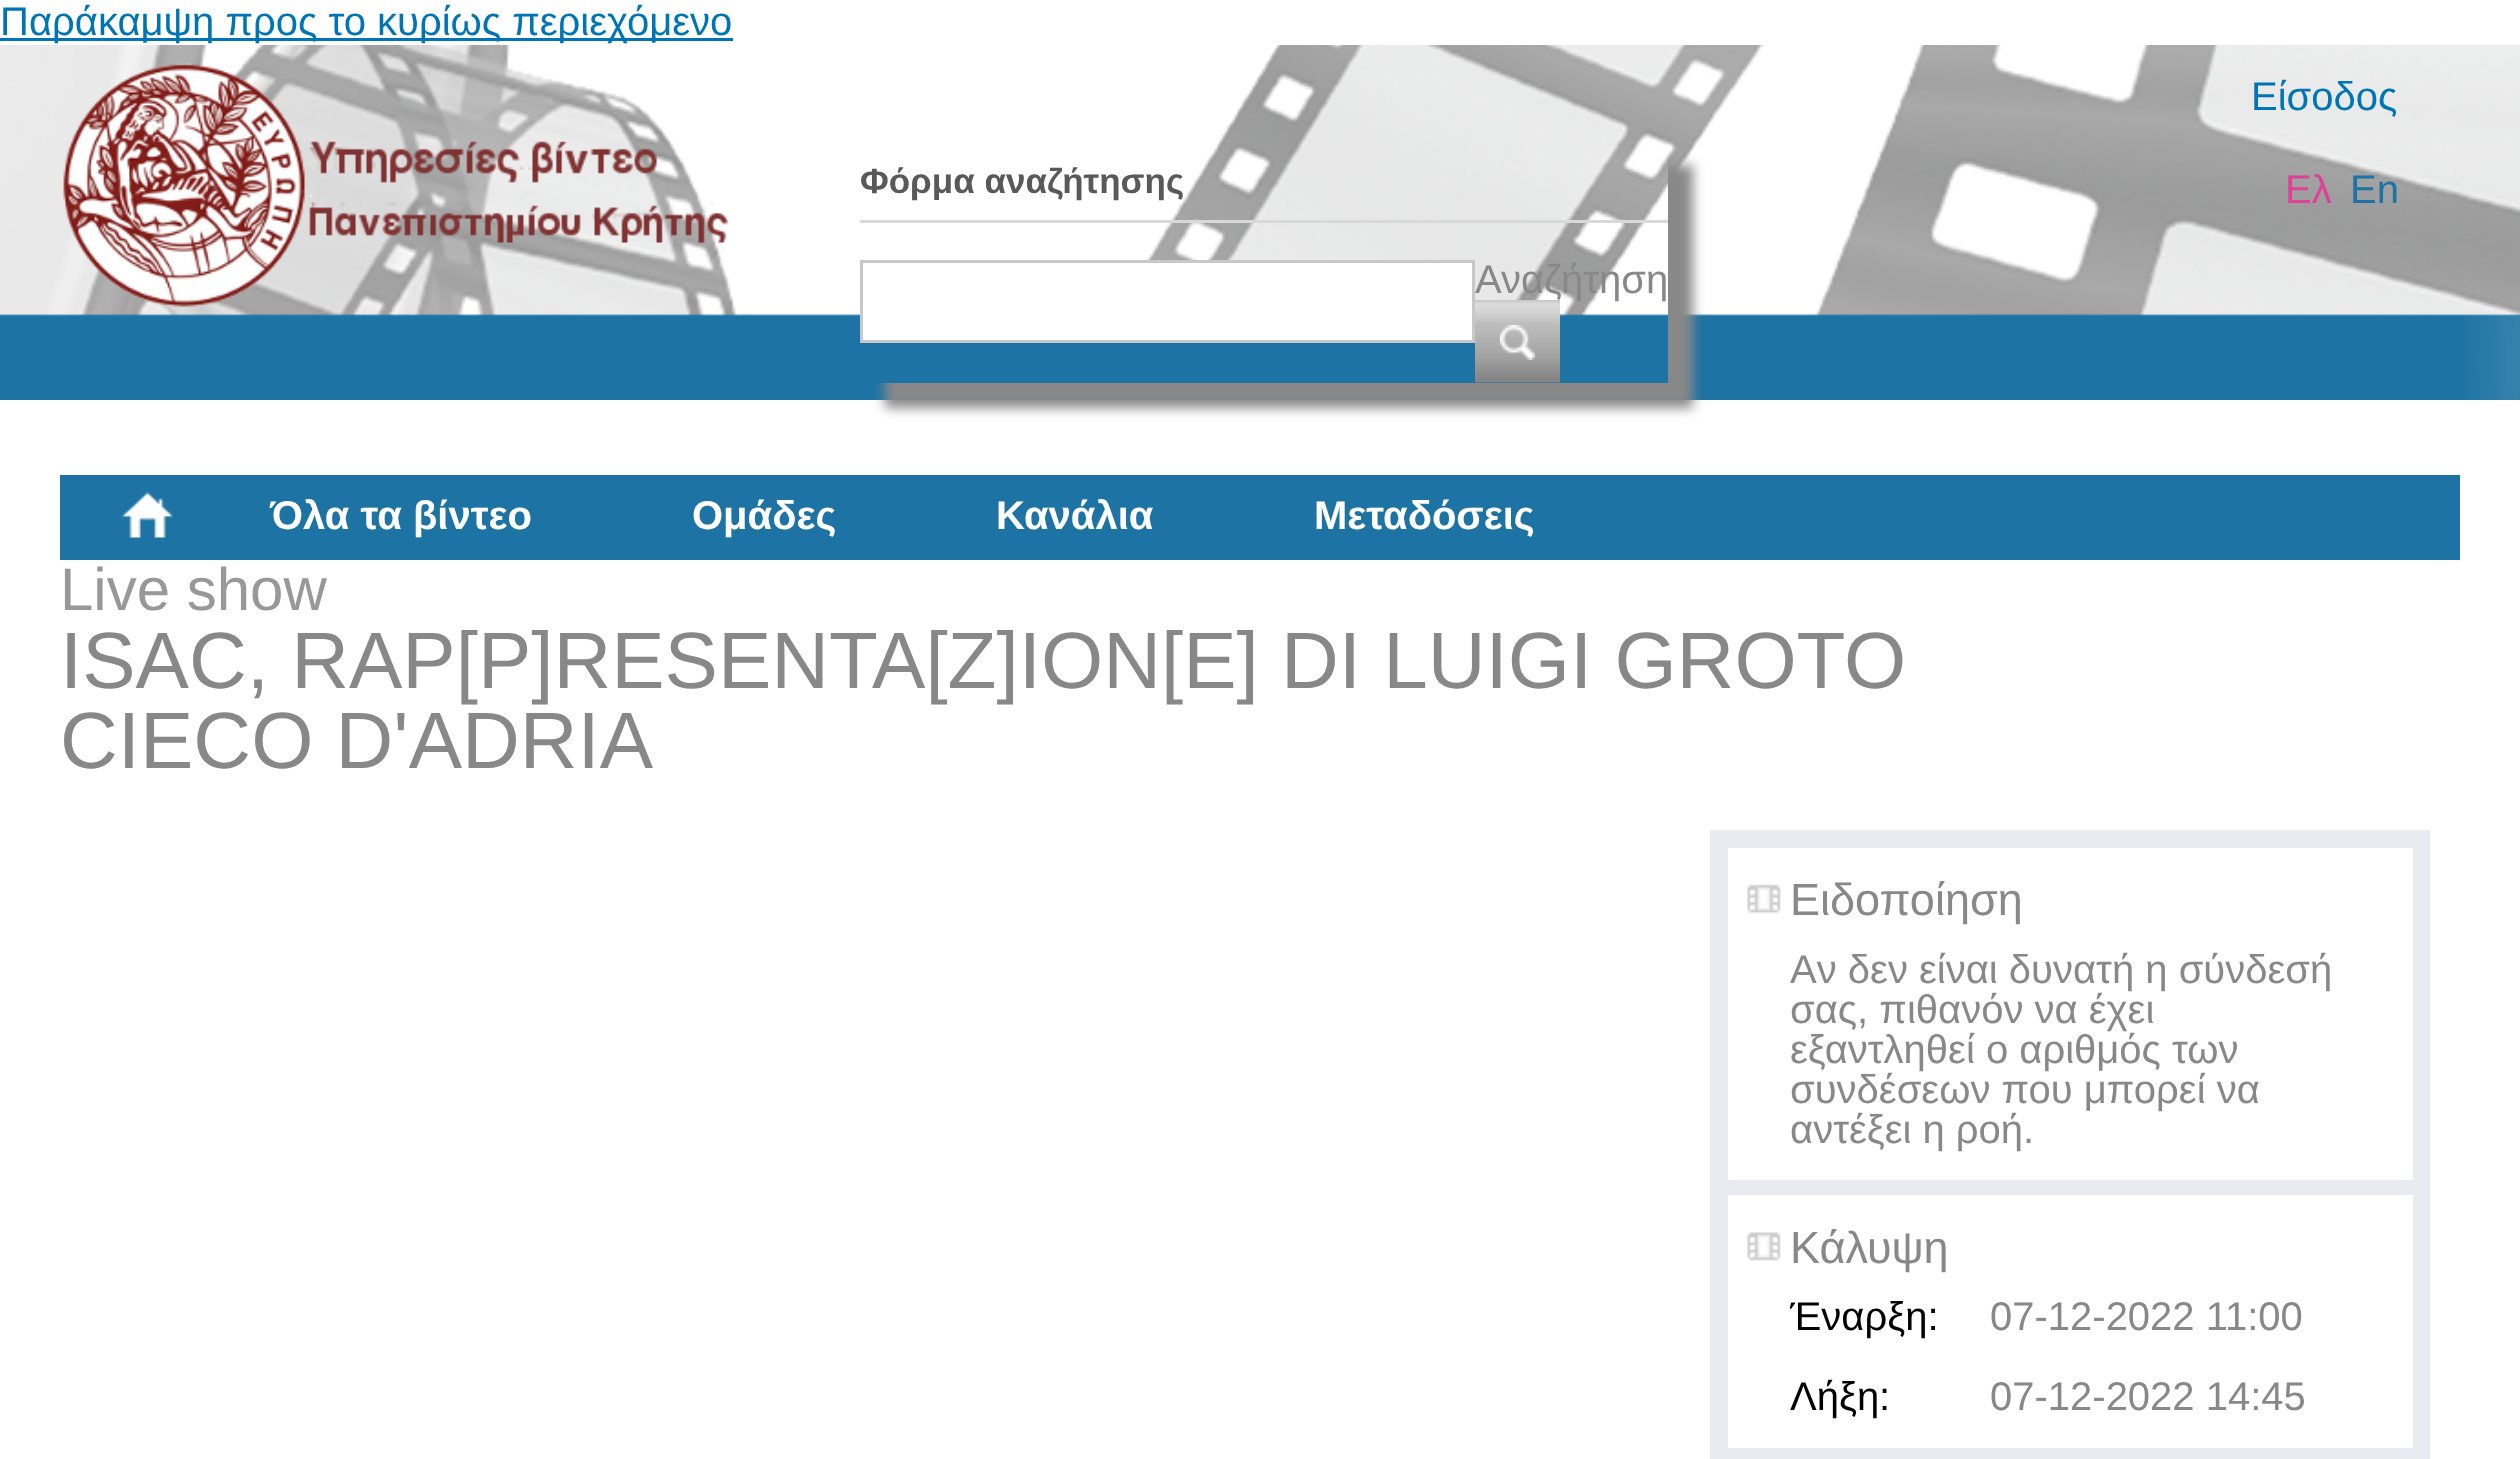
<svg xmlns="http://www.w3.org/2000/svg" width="2520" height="1459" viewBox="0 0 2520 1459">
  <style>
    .t1 { font: 40px Liberation Sans; fill: #0075b5; }
    .t2 { font: bold 35px Liberation Sans; fill: #595959; }
    .t3 { font: 40px Liberation Sans; fill: #888; }
    .t4 { font: 40px Liberation Sans; fill: #e04096; }
    .t5 { font: 40px Liberation Sans; fill: #1d73a3; }
    .t6 { font: bold 40px Liberation Sans; fill: #fff; }
    .t7 { font: 60px Liberation Sans; fill: #989898; }
    .t8 { font: 80px Liberation Sans; fill: #888; }
    .t9 { font: 45px Liberation Sans; fill: #888; }
    .t10 { font: 40px Liberation Sans; fill: #000; }
  </style>
  <defs>
    <clipPath id="clip1"><path d="M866 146H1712V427H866ZM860 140H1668V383H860Z" clip-rule="evenodd"/></clipPath>
  </defs>
  <rect width="100%" height="100%" fill="#fff"/>
  <rect x="0" y="38" width="733" height="3" fill="#0075b5"/>
  <text x="0" y="35" class="t1">Παράκαμψη προς το κυρίως περιεχόμενο</text>
  <image x="0" y="45" width="2520" height="355" href="images/1.png"/>
  <image x="63" y="63" width="666" height="244" href="images/2.png"/>
  <text x="2251" y="110" class="t1">Είσοδος</text>
  <g clip-path="url(#clip1)">
    <rect x="885" y="165" width="808" height="243" fill="#888" filter="blur(6px)"/>
  </g>
  <rect x="860" y="220" width="808" height="3" fill="#d9d9d9"/>
  <text x="860" y="193" class="t2">Φόρμα αναζήτησης</text>
  <rect x="861.5" y="261.5" width="612" height="80" fill="#fff" stroke="#c8c8c8" stroke-width="3"/>
  <image x="1475" y="300" width="85" height="83" href="images/3.png"/>
  <text x="1475" y="293" class="t3">Αναζήτηση</text>
  <image x="1500" y="325" width="35" height="35" href="images/4.png"/>
  <text x="2285" y="203" class="t4">Ελ</text>
  <text x="2350" y="203" class="t5">En</text>
  <rect x="60" y="475" width="2400" height="85" fill="#1d73a3"/>
  <image x="122" y="492" width="51" height="46" href="images/5.png"/>
  <text x="270" y="529" class="t6">Όλα τα βίντεο</text>
  <text x="692" y="529" class="t6">Ομάδες</text>
  <text x="996" y="529" class="t6">Κανάλια</text>
  <text x="1314" y="529" class="t6">Μεταδόσεις</text>
  <text x="60" y="610" class="t7">Live show</text>
  <text x="60" y="688" class="t8">ISAC, RAP[P]RESENTA[Z]ION[E] DI LUIGI GROTO</text>
  <text x="60" y="768" class="t8">CIECO D'ADRIA</text>
  <rect x="1728" y="830" width="685" height="18" fill="#eaeaf3"/>
  <rect x="2413" y="830" width="17" height="629" fill="#eaeaf3"/>
  <rect x="1710" y="830" width="18" height="629" fill="#eaeaf3"/>
  <image x="1747" y="884" width="34" height="30" href="images/6.png"/>
  <rect x="1728" y="1180" width="685" height="15" fill="#eaeaf3"/>
  <text x="1790" y="915" class="t9">Ειδοποίηση</text>
  <text x="1790" y="983" class="t3">Aν δεν είναι δυνατή η σύνδεσή</text>
  <text x="1790" y="1023" class="t3">σας, πιθανόν να έχει</text>
  <text x="1790" y="1063" class="t3">εξαντληθεί ο αριθμός των</text>
  <text x="1790" y="1103" class="t3">συνδέσεων που μπορεί να</text>
  <text x="1790" y="1143" class="t3">αντέξει η ροή.</text>
  <image x="1747" y="1232" width="34" height="29" href="images/7.png"/>
  <rect x="1728" y="1448" width="685" height="11" fill="#eaeaf3"/>
  <text x="1790" y="1263" class="t9">Κάλυψη</text>
  <text x="1790" y="1330" class="t10">Έναρξη:</text>
  <text x="1990" y="1330" class="t3">07-12-2022 11:00</text>
  <text x="1790" y="1410" class="t10">Λήξη:</text>
  <text x="1990" y="1410" class="t3">07-12-2022 14:45</text>
</svg>
